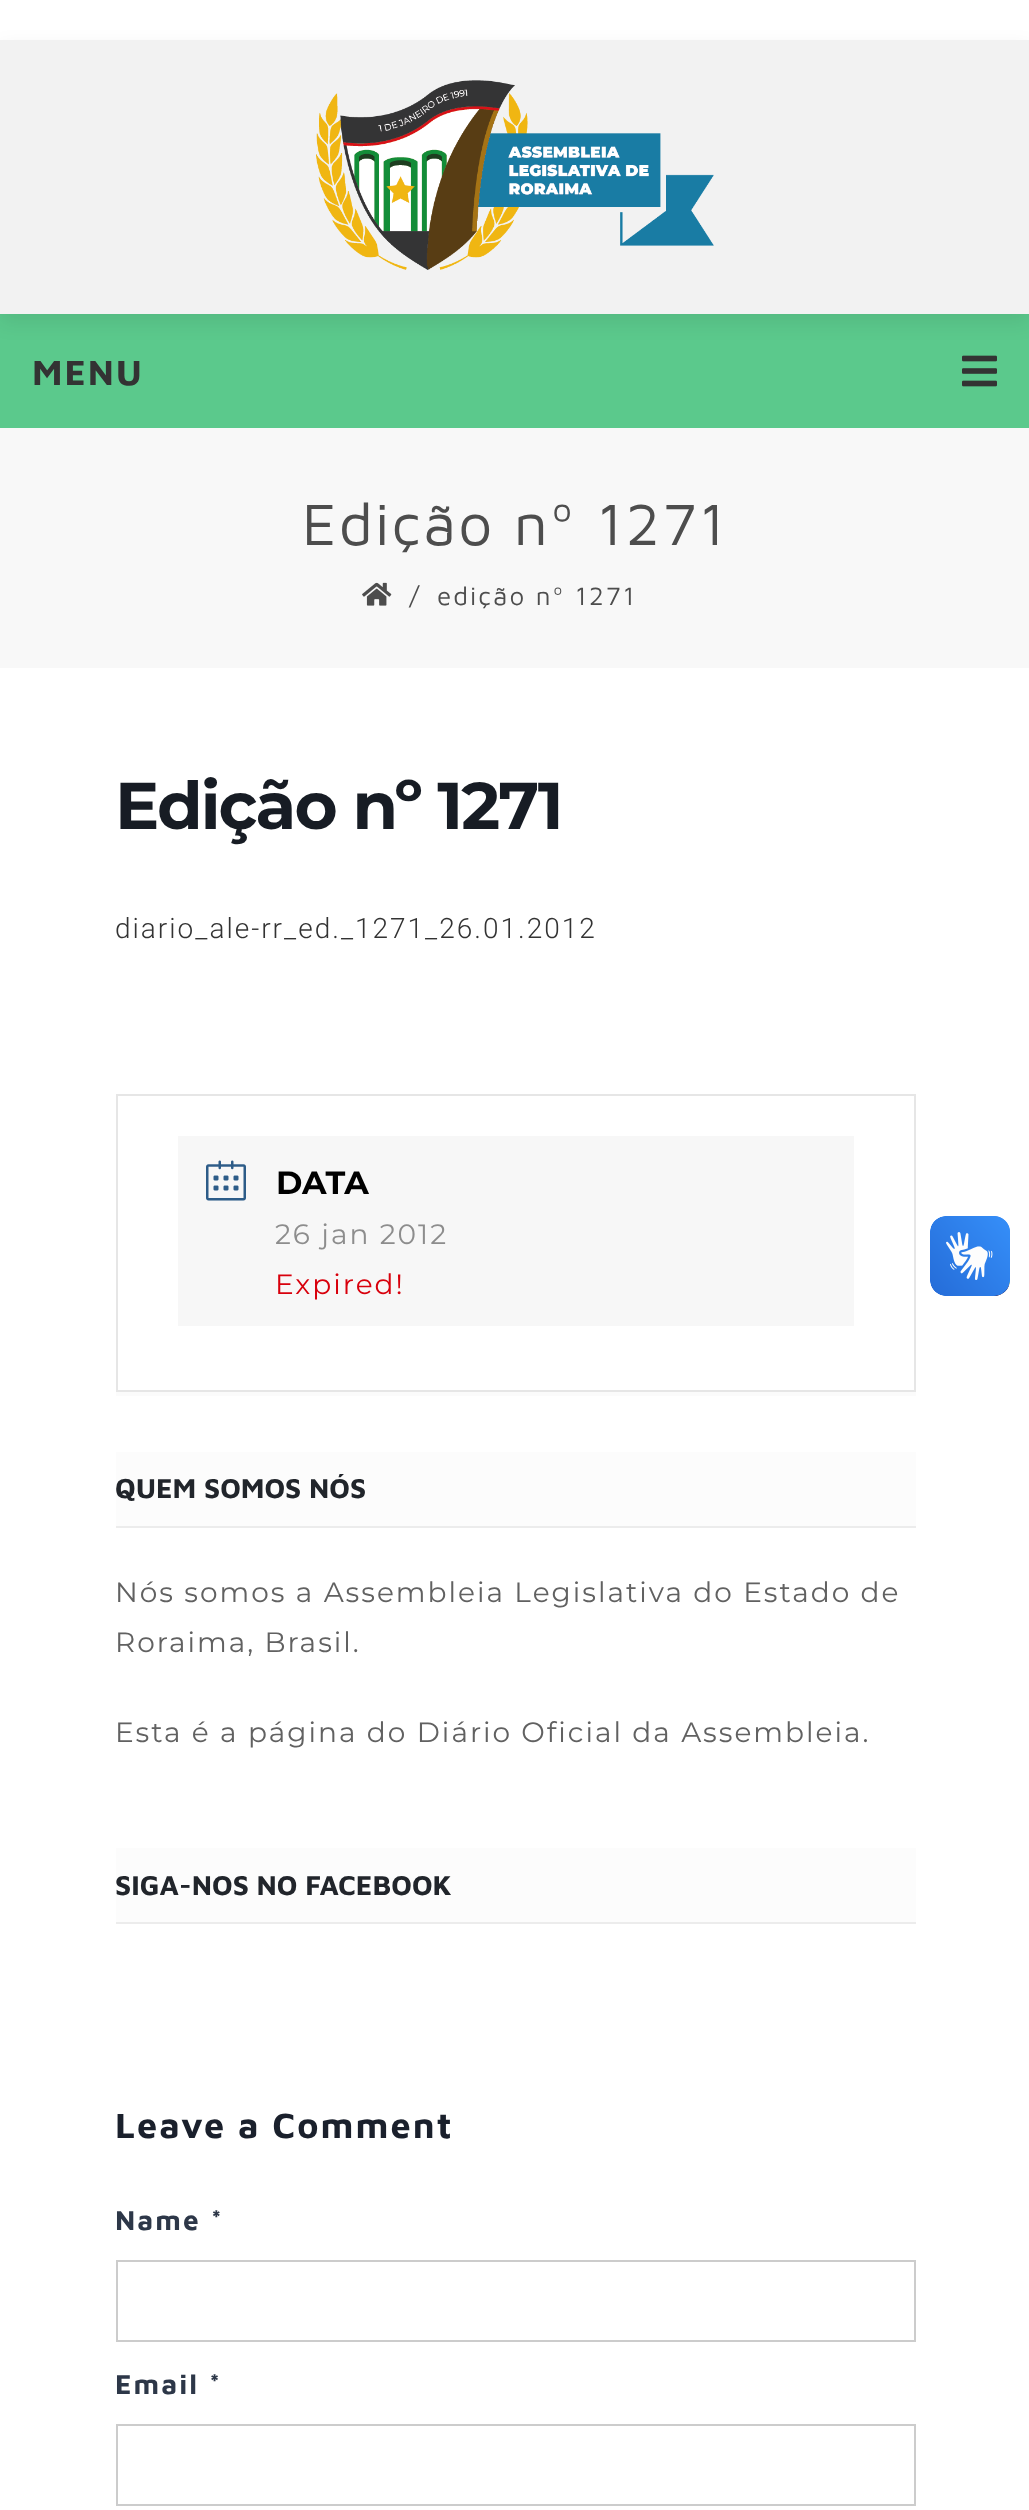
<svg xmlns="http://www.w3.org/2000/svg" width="1029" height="2510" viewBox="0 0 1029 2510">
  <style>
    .t1 { font: bold 36px Maven Pro; letter-spacing: 2px; fill: #333; }
    .t2 { font: 60px Maven Pro; letter-spacing: 2px; fill: #4d4d4d; }
    .t3 { font: 26px Maven Pro; letter-spacing: 2px; fill: #4d4d4d; }
    .t4 { font: bold 66px Montserrat; letter-spacing: -2px; fill: #171c24; }
    .t5 { font: 300 28px Roboto; letter-spacing: 2px; fill: #333; }
    .t6 { font: bold 32px Montserrat; fill: #000; }
    .t7 { font: 28px Montserrat; letter-spacing: 2px; fill: #8d8d8d; }
    .t8 { font: 28px Montserrat; letter-spacing: 2px; fill: #d8000c; }
    .t9 { font: bold 28px Maven Pro; fill: #21252b; }
    .t10 { font: 28px Montserrat; letter-spacing: 2px; fill: #616161; }
    .t11 { font: bold 36px Maven Pro; letter-spacing: 2px; fill: #1a202c; }
    .t12 { font: bold 28px Maven Pro; letter-spacing: 2px; fill: #2d3748; }
  </style>
  <rect width="100%" height="100%" fill="#fff"/>
  <rect x="0" y="314" width="1029" height="114" fill="#5bc98c"/>
  <rect x="0" y="48" width="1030" height="274" fill="#00000014" filter="blur(10px)"/>
  <rect x="0" y="40" width="1029" height="274" fill="#f2f2f2"/>
  <image x="316" y="80" width="398" height="190" href="images/1.png"/>
  <text x="32" y="385" class="t1">MENU</text>
  <image x="962" y="355" width="35" height="32" href="images/2.png"/>
  <rect x="0" y="428" width="1029" height="240" fill="#f8f8f8"/>
  <text x="302" y="545" class="t2">Edição nº 1271</text>
  <image x="362" y="582" width="30" height="24" href="images/3.png"/>
  <text x="409" y="605" class="t3">/</text>
  <text x="437" y="605" class="t3">edição nº 1271</text>
  <text x="115" y="829" class="t4">Edição nº 1271</text>
  <text x="115" y="938" class="t5">diario_ale-rr_ed._1271_26.01.2012</text>
  <rect x="116" y="1392" width="800" height="4" fill="#fbfbfb"/>
  <rect x="117" y="1095" width="798" height="296" fill="none" stroke="#e6e6e6" stroke-width="2"/>
  <rect x="178" y="1136" width="676" height="190" fill="#f7f7f7"/>
  <image x="206" y="1160" width="40" height="41" href="images/4.png"/>
  <text x="276" y="1194" class="t6">DATA</text>
  <text x="275" y="1244" class="t7">26 jan 2012</text>
  <text x="275" y="1294" class="t8">Expired!</text>
  <rect x="116" y="1452" width="800" height="74" fill="#fcfcfc"/>
  <rect x="116" y="1526" width="800" height="2" fill="#ececec"/>
  <text x="115" y="1498" class="t9">QUEM SOMOS NÓS</text>
  <text x="115" y="1602" class="t10">Nós somos a Assembleia Legislativa do Estado de</text>
  <text x="115" y="1652" class="t10">Roraima, Brasil.</text>
  <text x="115" y="1742" class="t10">Esta é a página do Diário Oficial da Assembleia.</text>
  <rect x="116" y="1848" width="800" height="74" fill="#fcfcfc"/>
  <rect x="116" y="1922" width="800" height="2" fill="#ececec"/>
  <text x="115" y="1895" class="t9">SIGA-NOS NO FACEBOOK</text>
  <text x="115" y="2138" class="t11">Leave a Comment</text>
  <text x="115" y="2230" class="t12">Name *</text>
  <rect x="117" y="2261" width="798" height="80" fill="none" stroke="#ccc" stroke-width="2"/>
  <text x="115" y="2394" class="t12">Email *</text>
  <rect x="117" y="2425" width="798" height="80" fill="none" stroke="#ccc" stroke-width="2"/>
  <image x="930" y="1216" width="80" height="80" href="images/5.png"/>
  <image x="930" y="1216" width="80" height="80" href="images/6.png"/>
</svg>
